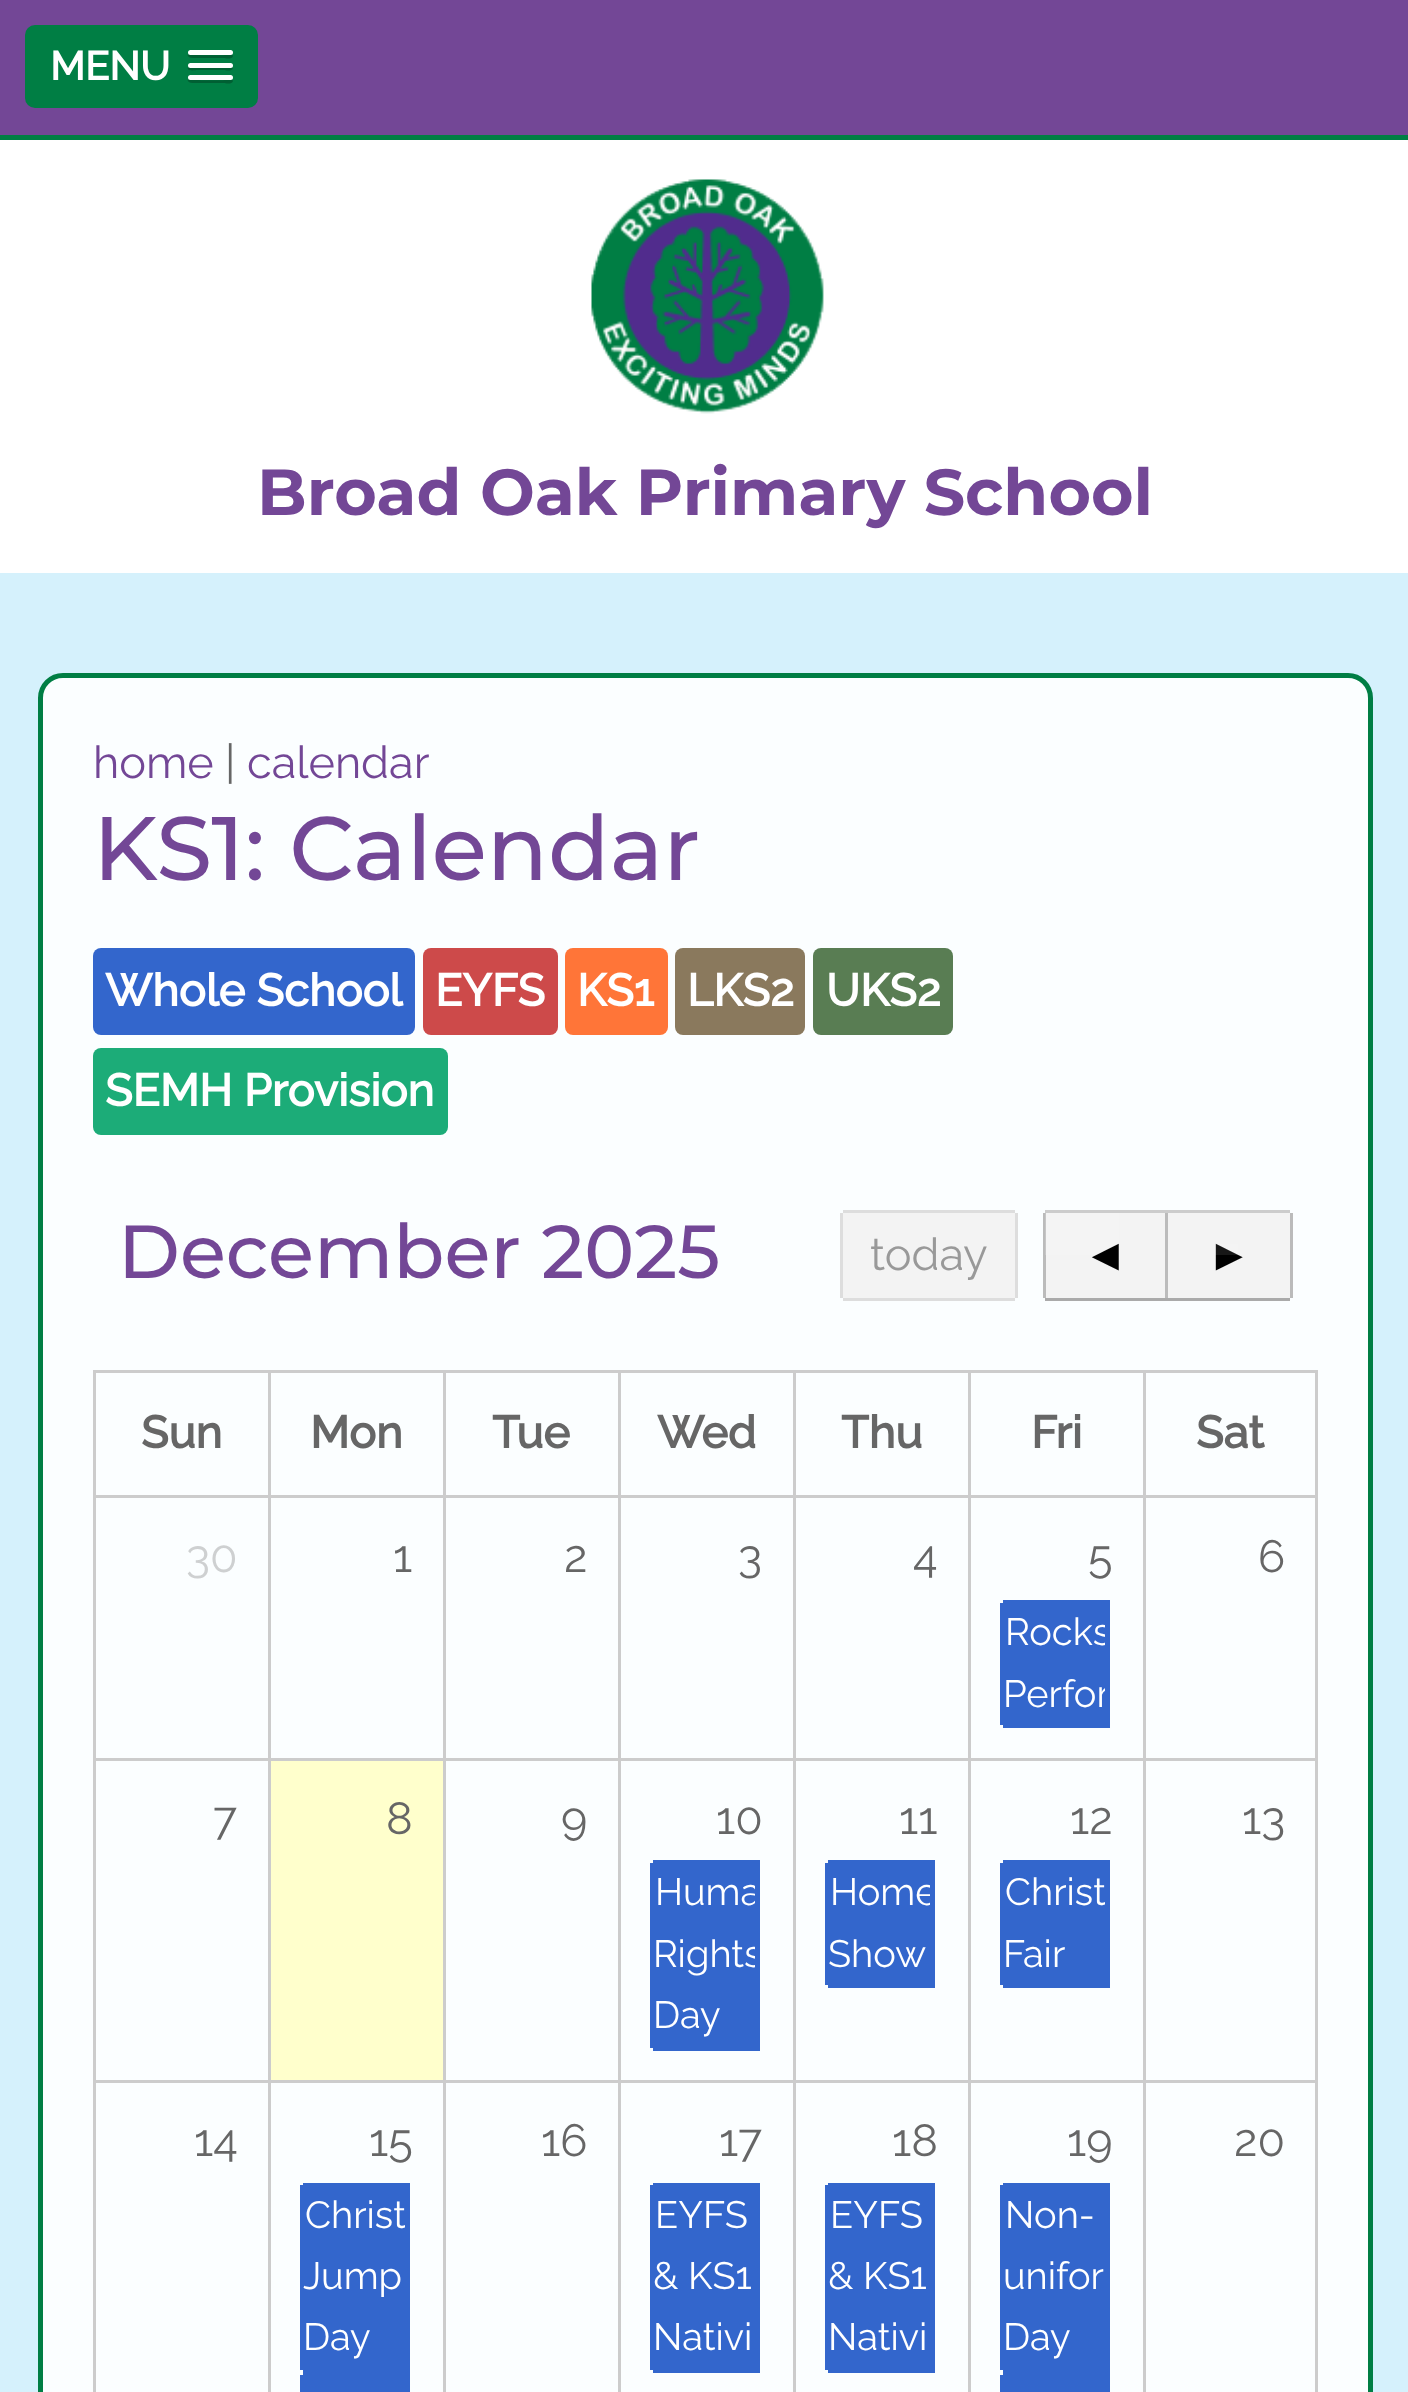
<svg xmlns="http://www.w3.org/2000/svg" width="1408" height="2392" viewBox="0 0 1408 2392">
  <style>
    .t1 { font: bold 40px Raleway; fill: #fff; }
    .t2 { font: bold 65px Montserrat; fill: #734796; }
    .t3 { font: 45px Raleway; fill: #734796; }
    .t4 { font: 45px Raleway; fill: #666; }
    .t5 { font: 500 90px Montserrat; fill: #734796; }
    .t6 { font: bold 45px Raleway; fill: #fff; }
    .t7 { font: 500 75px Montserrat; fill: #734796; }
    .t8 { font: 45px Raleway; fill: #999; }
    .t9 { font: 45px Liberation Sans; fill: #000; }
    .t10 { font: bold 45px Raleway; fill: #666; }
    .t11 { font: 45px Raleway; fill: #ced0d1; }
    .t12 { font: 38px Raleway; fill: #fff; }
  </style>
  <defs>
    <clipPath id="clip1"><rect x="1003" y="1603" width="102" height="122"/></clipPath>
    <clipPath id="clip2"><rect x="653" y="1863" width="102" height="185"/></clipPath>
    <clipPath id="clip3"><rect x="828" y="1863" width="102" height="122"/></clipPath>
    <clipPath id="clip4"><rect x="1003" y="1863" width="102" height="122"/></clipPath>
    <clipPath id="clip5"><rect x="303" y="2185" width="102" height="185"/></clipPath>
  </defs>
  <rect width="100%" height="100%" fill="#734796"/>
  <rect x="25" y="25" width="233" height="83" rx="10" fill="#007e44"/>
  <text x="50" y="80" class="t1">MENU</text>
  <path d="M188 54C186 59 197 58 197 58H224C225 58 232 60 233 56L232 54L230 55C227 55 190 56 188 54Z" fill="#005f33"/>
  <rect x="188" y="50" width="45" height="5" rx="2.5" fill="#fff"/>
  <path d="M188 67C186 72 196 70 197 70H224C225 70 232 72 233 68L232 66L230 67H190Z" fill="#005f33"/>
  <rect x="188" y="63" width="45" height="5" rx="2.5" fill="#fff"/>
  <path d="M188 79C186 84 197 83 197 83H224C225 83 232 85 233 81L232 79L230 80C227 80 190 81 188 79Z" fill="#005f33"/>
  <rect x="188" y="75" width="45" height="5" rx="2.5" fill="#fff"/>
  <rect x="0" y="573" width="1408" height="1819" fill="#d5f1fc"/>
  <rect x="0" y="140" width="1408" height="433" fill="#fff"/>
  <rect x="0" y="135" width="1408" height="5" fill="#007e44"/>
  <image x="591" y="179" width="233" height="235" href="images/1.png"/>
  <text x="257" y="515" class="t2">Broad Oak Primary School</text>
  <rect x="40.5" y="675.5" width="1330" height="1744" rx="22.5" fill="#fbfeff" stroke="#007e44" stroke-width="5"/>
  <text x="93" y="778" class="t3">home</text>
  <text x="225" y="778" class="t4">|</text>
  <text x="247" y="778" class="t3">calendar</text>
  <text x="93" y="880" class="t5">KS1: Calendar</text>
  <rect x="93" y="948" width="322" height="87" rx="8" fill="#36c"/>
  <text x="105" y="1006" class="t6">Whole School</text>
  <rect x="423" y="948" width="135" height="87" rx="8" fill="#cd4a4a"/>
  <text x="435" y="1006" class="t6">EYFS</text>
  <rect x="565" y="948" width="103" height="87" rx="8" fill="#ff7538"/>
  <text x="577" y="1006" class="t6">KS1</text>
  <rect x="675" y="948" width="130" height="87" rx="8" fill="#8a795d"/>
  <text x="687" y="1006" class="t6">LKS2</text>
  <rect x="813" y="948" width="140" height="87" rx="8" fill="#597d53"/>
  <text x="826" y="1006" class="t6">UKS2</text>
  <rect x="93" y="1048" width="355" height="87" rx="8" fill="#1cac78"/>
  <text x="105" y="1106" class="t6">SEMH Provision</text>
  <text x="118" y="1278" class="t7">December 2025</text>
  <rect x="843" y="1213" width="172" height="85" fill="#f3f3f3"/>
  <rect x="843" y="1210" width="172" height="3" fill="#ddd"/>
  <rect x="843" y="1298" width="172" height="3" fill="#ddd"/>
  <rect x="1015" y="1213" width="3" height="85" fill="#ddd"/>
  <rect x="840" y="1213" width="3" height="85" fill="#ddd"/>
  <text x="870" y="1270" class="t8">today</text>
  <rect x="1046" y="1213" width="119" height="85" fill="#f3f3f3"/>
  <rect x="1045" y="1210" width="245" height="3" fill="#ccc"/>
  <rect x="1045" y="1298" width="245" height="3" fill="#aaa"/>
  <rect x="1043" y="1213" width="3" height="85" fill="#bbb"/>
  <rect x="1045" y="1213" width="74" height="42" fill="#ffffff17"/>
  <rect x="1045" y="1213" width="1" height="42" fill="#ffffff17"/>
  <text x="1083" y="1270" class="t9">◄</text>
  <rect x="1168" y="1213" width="122" height="85" fill="#f3f3f3"/>
  <rect x="1290" y="1213" width="3" height="85" fill="#bbb"/>
  <rect x="1165" y="1213" width="3" height="85" fill="#bbb"/>
  <text x="1207" y="1270" class="t9">►</text>
  <rect x="1215" y="1244" width="23" height="11" fill="#ffffff17"/>
  <rect x="93" y="1370" width="1050" height="3" fill="#ccc"/>
  <rect x="93" y="1495" width="1050" height="3" fill="#ccc"/>
  <rect x="93" y="1370" width="3" height="388" fill="#ccc"/>
  <text x="141" y="1448" class="t10">Sun</text>
  <rect x="268" y="1370" width="3" height="388" fill="#ccc"/>
  <text x="310" y="1448" class="t10">Mon</text>
  <rect x="443" y="1370" width="3" height="388" fill="#ccc"/>
  <text x="492" y="1448" class="t10">Tue</text>
  <rect x="618" y="1370" width="3" height="388" fill="#ccc"/>
  <text x="657" y="1448" class="t10">Wed</text>
  <rect x="793" y="1370" width="3" height="388" fill="#ccc"/>
  <text x="841" y="1448" class="t10">Thu</text>
  <rect x="968" y="1370" width="3" height="388" fill="#ccc"/>
  <text x="1031" y="1448" class="t10">Fri</text>
  <rect x="1144.5" y="1371.5" width="172" height="125" fill="none" stroke="#ccc" stroke-width="3"/>
  <text x="1196" y="1448" class="t10">Sat</text>
  <text x="186" y="1572" class="t11">30</text>
  <text x="393" y="1572" class="t4">1</text>
  <text x="564" y="1572" class="t4">2</text>
  <text x="738" y="1572" class="t4">3</text>
  <text x="913" y="1572" class="t4">4</text>
  <text x="1088" y="1572" class="t4">5</text>
  <rect x="1315" y="1498" width="3" height="260" fill="#ccc"/>
  <rect x="1143" y="1498" width="3" height="260" fill="#ccc"/>
  <text x="1258" y="1572" class="t4">6</text>
  <rect x="93" y="1758" width="1225" height="3" fill="#ccc"/>
  <rect x="93" y="1758" width="3" height="322" fill="#ccc"/>
  <text x="213" y="1834" class="t4">7</text>
  <rect x="271" y="1761" width="172" height="319" fill="#ffc"/>
  <rect x="268" y="1758" width="3" height="322" fill="#ccc"/>
  <text x="386" y="1834" class="t4">8</text>
  <rect x="443" y="1758" width="3" height="322" fill="#ccc"/>
  <text x="561" y="1834" class="t4">9</text>
  <rect x="618" y="1758" width="3" height="322" fill="#ccc"/>
  <text x="716" y="1834" class="t4">10</text>
  <rect x="793" y="1758" width="3" height="322" fill="#ccc"/>
  <text x="899" y="1834" class="t4">11</text>
  <rect x="968" y="1758" width="3" height="322" fill="#ccc"/>
  <text x="1070" y="1834" class="t4">12</text>
  <rect x="1315" y="1758" width="3" height="322" fill="#ccc"/>
  <rect x="1143" y="1758" width="3" height="322" fill="#ccc"/>
  <text x="1242" y="1834" class="t4">13</text>
  <rect x="93" y="2080" width="1225" height="3" fill="#ccc"/>
  <rect x="93" y="2080" width="3" height="312" fill="#ccc"/>
  <text x="194" y="2156" class="t4">14</text>
  <rect x="268" y="2080" width="3" height="312" fill="#ccc"/>
  <text x="369" y="2156" class="t4">15</text>
  <rect x="443" y="2080" width="3" height="312" fill="#ccc"/>
  <text x="541" y="2156" class="t4">16</text>
  <rect x="618" y="2080" width="3" height="312" fill="#ccc"/>
  <text x="719" y="2156" class="t4">17</text>
  <rect x="793" y="2080" width="3" height="312" fill="#ccc"/>
  <text x="892" y="2156" class="t4">18</text>
  <rect x="968" y="2080" width="3" height="312" fill="#ccc"/>
  <text x="1067" y="2156" class="t4">19</text>
  <rect x="1315" y="2080" width="3" height="312" fill="#ccc"/>
  <rect x="1143" y="2080" width="3" height="312" fill="#ccc"/>
  <text x="1234" y="2156" class="t4">20</text>
  <rect x="1003" y="1600" width="107" height="128" fill="#36c"/>
  <rect x="1000" y="1603" width="3" height="122" fill="#36c"/>
  <g clip-path="url(#clip1)">
    <text x="1005" y="1645" class="t12">Rocks</text>
    <text x="1003" y="1707" class="t12">Perfor</text>
  </g>
  <rect x="653" y="1860" width="107" height="191" fill="#36c"/>
  <rect x="650" y="1863" width="3" height="185" fill="#36c"/>
  <g clip-path="url(#clip2)">
    <text x="655" y="1905" class="t12">Huma</text>
    <text x="653" y="1967" class="t12">Rights</text>
  </g>
  <text x="653" y="2028" class="t12">Day</text>
  <rect x="828" y="1860" width="107" height="128" fill="#36c"/>
  <rect x="825" y="1863" width="3" height="122" fill="#36c"/>
  <g clip-path="url(#clip3)">
    <text x="830" y="1905" class="t12">Home</text>
  </g>
  <text x="828" y="1967" class="t12">Show</text>
  <rect x="1003" y="1860" width="107" height="128" fill="#36c"/>
  <rect x="1000" y="1863" width="3" height="122" fill="#36c"/>
  <g clip-path="url(#clip4)">
    <text x="1005" y="1905" class="t12">Christ</text>
  </g>
  <text x="1003" y="1967" class="t12">Fair</text>
  <rect x="303" y="2183" width="107" height="190" fill="#36c"/>
  <rect x="300" y="2185" width="3" height="185" fill="#36c"/>
  <g clip-path="url(#clip5)">
    <text x="305" y="2228" class="t12">Christ</text>
  </g>
  <text x="303" y="2289" class="t12">Jump</text>
  <text x="303" y="2350" class="t12">Day</text>
  <rect x="653" y="2183" width="107" height="190" fill="#36c"/>
  <rect x="650" y="2185" width="3" height="185" fill="#36c"/>
  <text x="655" y="2228" class="t12">EYFS</text>
  <text x="653" y="2289" class="t12">&amp; KS1</text>
  <text x="653" y="2350" class="t12">Nativi</text>
  <rect x="828" y="2183" width="107" height="190" fill="#36c"/>
  <rect x="825" y="2185" width="3" height="185" fill="#36c"/>
  <text x="830" y="2228" class="t12">EYFS</text>
  <text x="828" y="2289" class="t12">&amp; KS1</text>
  <text x="828" y="2350" class="t12">Nativi</text>
  <rect x="1003" y="2183" width="107" height="190" fill="#36c"/>
  <rect x="1000" y="2185" width="3" height="185" fill="#36c"/>
  <text x="1005" y="2228" class="t12">Non-</text>
  <text x="1003" y="2289" class="t12">unifor</text>
  <text x="1003" y="2350" class="t12">Day</text>
  <rect x="303" y="2373" width="107" height="19" fill="#36c"/>
  <rect x="300" y="2375" width="3" height="17" fill="#36c"/>
  <rect x="1003" y="2373" width="107" height="19" fill="#36c"/>
  <rect x="1000" y="2375" width="3" height="17" fill="#36c"/>
</svg>
